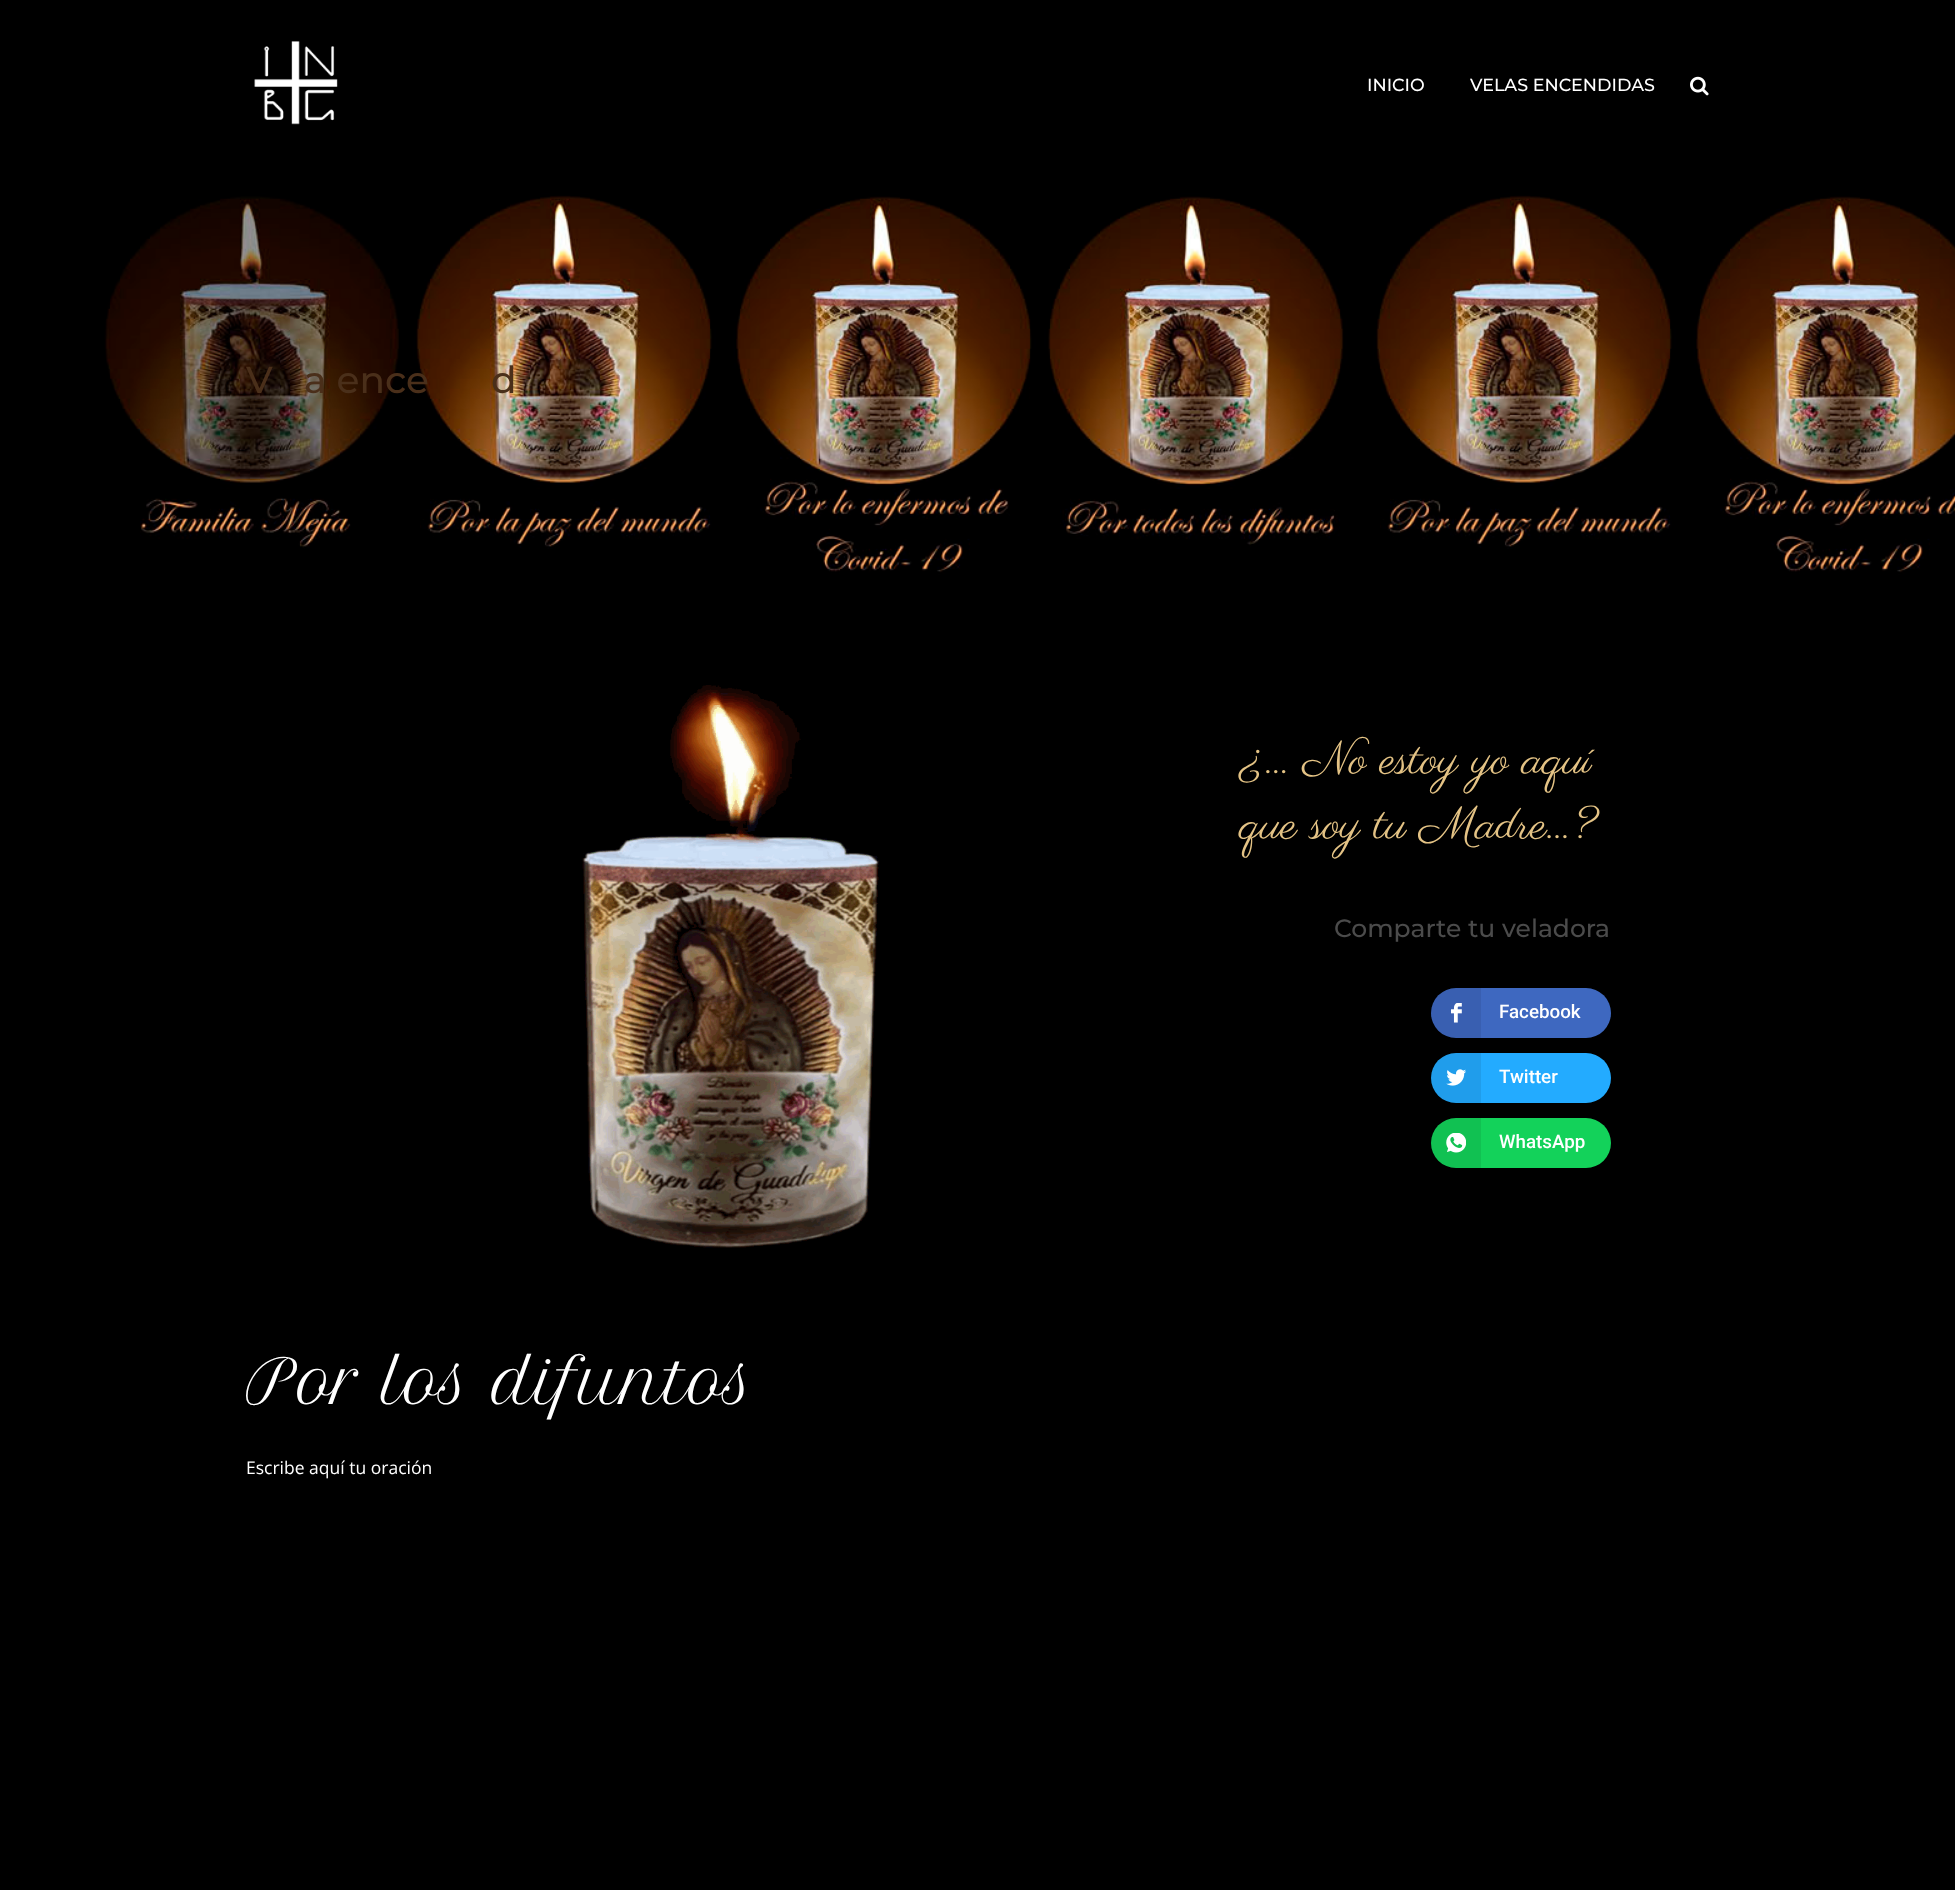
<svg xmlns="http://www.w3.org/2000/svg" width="1955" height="1890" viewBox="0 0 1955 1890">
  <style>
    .t1 { font: 500 17.5px Montserrat; fill: #fff; }
    .t2 { font: 500 37.5px Montserrat; fill: #4a2f1a; }
    .t3 { font: 46.25px Parisienne; fill: #e4c385; }
    .t4 { font: 500 25px Montserrat; fill: #4b4b4b; }
    .t5 { font: 500 18.75px Roboto; fill: #fff; }
    .t6 { font: 60px Petit Formal Script; fill: #fff; }
    .t7 { font: 17.5px Open Sans; fill: #fff; }
  </style>
  <rect width="100%" height="100%" fill="#fff"/>
  <rect x="0" y="0" width="1955" height="169" fill="#000"/>
  <image x="254" y="41" width="84" height="84" href="images/1.png"/>
  <text x="1367" y="91" class="t1">INICIO</text>
  <text x="1470" y="91" class="t1">VELAS ENCENDIDAS</text>
  <image x="1690" y="76" width="19" height="20" href="images/2.png"/>
  <image x="0" y="169" width="1955" height="406" href="images/3.png"/>
  <text x="246" y="393" class="t2">V</text>
  <text x="304" y="393" class="t2">a ence</text>
  <text x="491" y="393" class="t2">d</text>
  <rect x="0" y="575" width="1955" height="1315" fill="#000"/>
  <text x="1240" y="773" class="t3">¿… No estoy yo aquí</text>
  <text x="1240" y="838" class="t3">que soy tu Madre…?</text>
  <text x="1334" y="937" class="t4">Comparte tu veladora</text>
  <rect x="1431" y="988" width="180" height="50" rx="25" fill="#3e68c0"/>
  <path d="M1456 988H1481V1038H1456C1442 1038 1431 1027 1431 1013C1431 999 1442 988 1456 988Z" fill="#00000014"/>
  <image x="1451" y="1003" width="11" height="20" href="images/4.png"/>
  <text x="1499" y="1018" class="t5">Facebook</text>
  <rect x="1431" y="1053" width="180" height="50" rx="25" fill="#23abff"/>
  <path d="M1456 1053H1481V1103H1456C1442 1103 1431 1092 1431 1078C1431 1064 1442 1053 1456 1053Z" fill="#00000014"/>
  <image x="1446" y="1069" width="20" height="17" href="images/5.png"/>
  <text x="1499" y="1083" class="t5">Twitter</text>
  <rect x="1431" y="1118" width="180" height="50" rx="25" fill="#13d25a"/>
  <path d="M1456 1118H1481V1168H1456C1442 1168 1431 1157 1431 1143C1431 1129 1442 1118 1456 1118Z" fill="#00000014"/>
  <image x="1446" y="1133" width="20" height="20" href="images/6.png"/>
  <text x="1499" y="1148" class="t5">WhatsApp</text>
  <image x="582" y="685" width="297" height="563" href="images/7.png"/>
  <text x="246" y="1404" class="t6">Por los difuntos</text>
  <text x="246" y="1474" class="t7">Escribe aquí tu oración</text>
</svg>
